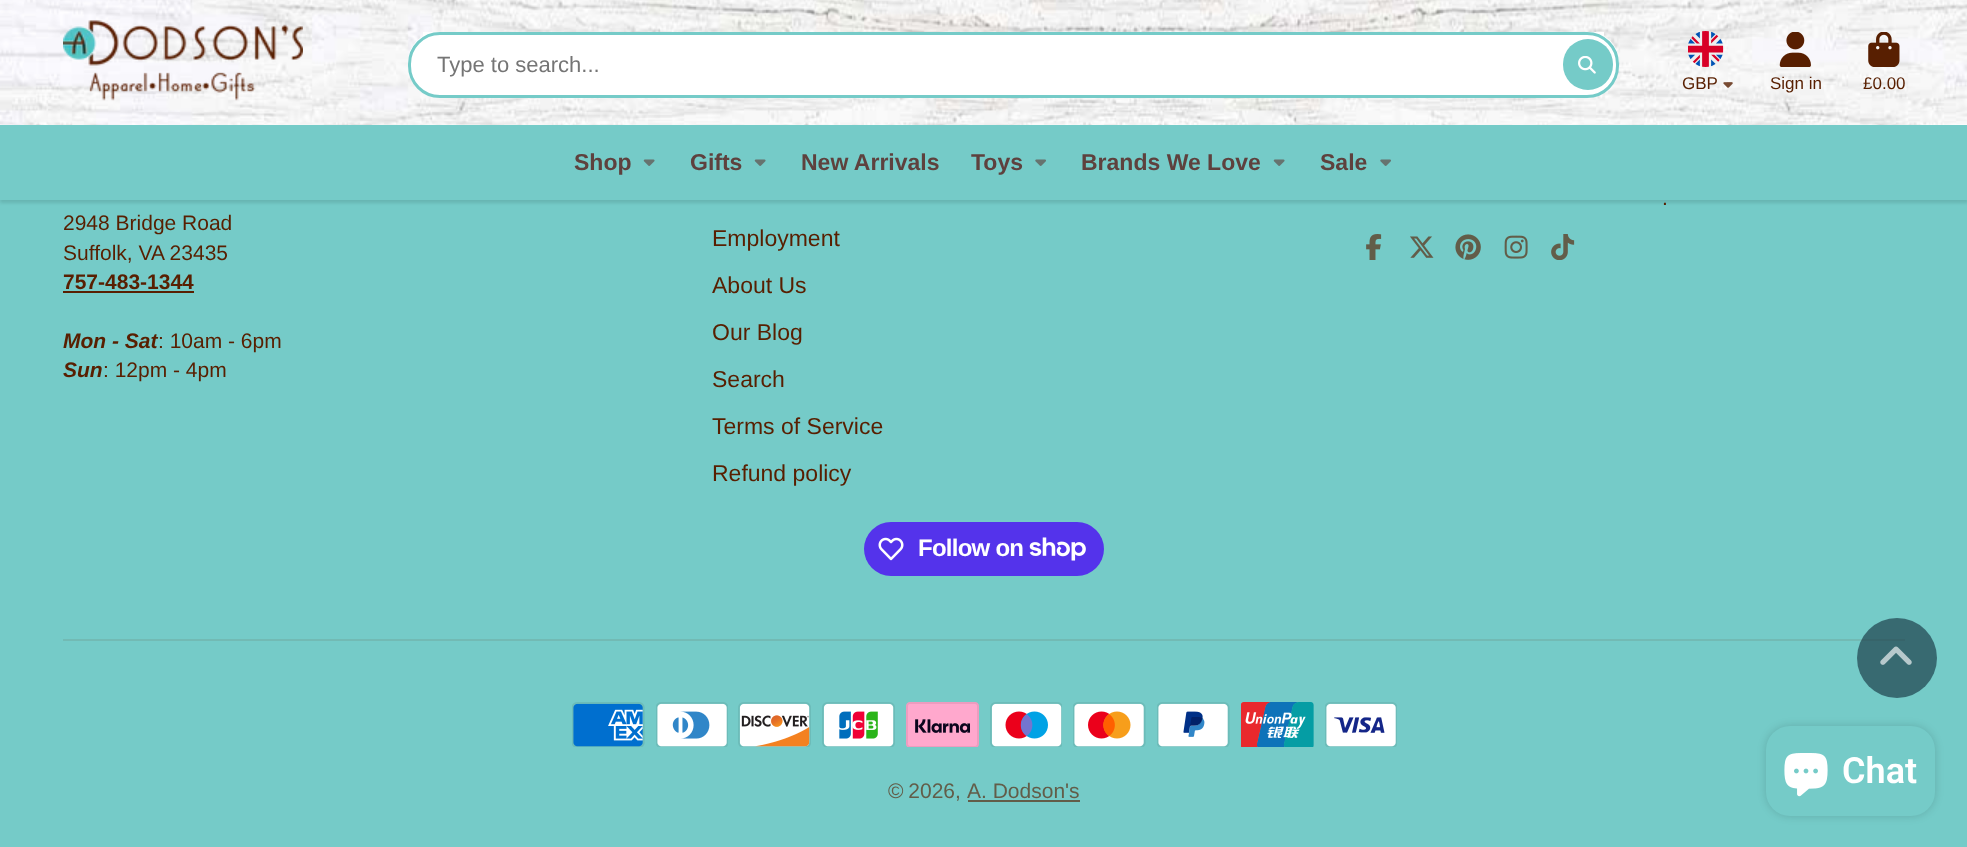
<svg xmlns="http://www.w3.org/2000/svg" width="1967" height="847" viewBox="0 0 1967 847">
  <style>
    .t1 { font: 22px Liberation Sans; fill: #757575; }
    .t2 { font: 17px Liberation Sans; fill: #581f01; }
    .t3 { font: bold 23px Liberation Sans; fill: #5e413e; }
    .t4 { font: 21px Liberation Sans; fill: #581f01; }
    .t5 { font: bold 21px Liberation Sans; fill: #581f01; }
    .t6 { font: italic bold 21px Liberation Sans; fill: #581f01; }
    .t7 { font: 23px Liberation Sans; fill: #581f01; }
    .t8 { font: bold 24px Liberation Sans; letter-spacing: -0.75px; fill: #fff; }
    .t9 { font: 21px Liberation Sans; fill: #625d49; }
    .t10 { font: 600 36px Roboto; fill: #fff; }
  </style>
  <rect width="100%" height="100%" fill="#75cbc8"/>
  <rect x="0" y="3" width="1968" height="200" fill="#0b191c1f" filter="blur(1.5px)"/>
  <image x="0" y="0" width="1967" height="125" href="images/1.png"/>
  <image x="63" y="20" width="240" height="81" href="images/2.png"/>
  <rect x="408" y="32" width="1211" height="60" rx="30" fill="#fff"/>
  <rect x="423" y="32" width="1181" height="4" fill="#fff"/>
  <rect x="409.5" y="33.5" width="1208" height="63" rx="30.5" fill="#fff" stroke="#75cbc8" stroke-width="3"/>
  <text x="437" y="72" class="t1">Type to search...</text>
  <rect x="1563" y="39" width="50" height="51" rx="25" fill="#75cbc8"/>
  <image x="1578" y="56" width="18" height="18" href="images/3.png"/>
  <image x="1688" y="31" width="36" height="36" href="images/4.png"/>
  <text x="1682" y="89" class="t2">GBP</text>
  <image x="1723" y="82" width="10" height="6" href="images/5.png"/>
  <image x="1779" y="32" width="32" height="35" href="images/6.png"/>
  <text x="1770" y="89" class="t2">Sign in</text>
  <image x="1868" y="32" width="32" height="35" href="images/7.png"/>
  <text x="1863" y="89" class="t2">£0.00</text>
  <rect x="0" y="125" width="1967" height="75" fill="#75cbc8"/>
  <text x="574" y="170" class="t3">Shop</text>
  <image x="643" y="159" width="12" height="7" href="images/8.png"/>
  <text x="690" y="170" class="t3">Gifts</text>
  <image x="754" y="159" width="12" height="7" href="images/8.png"/>
  <text x="801" y="170" class="t3">New Arrivals</text>
  <text x="971" y="170" class="t3">Toys</text>
  <image x="1035" y="159" width="11" height="7" href="images/9.png"/>
  <text x="1081" y="170" class="t3">Brands We Love</text>
  <image x="1273" y="159" width="12" height="7" href="images/8.png"/>
  <text x="1320" y="170" class="t3">Sale</text>
  <image x="1380" y="159" width="11" height="7" href="images/9.png"/>
  <text x="1662" y="205" class="t4">.</text>
  <image x="1366" y="234" width="16" height="26" href="images/10.png"/>
  <image x="1410" y="236" width="24" height="22" href="images/11.png"/>
  <image x="1455" y="234" width="26" height="26" href="images/12.png"/>
  <image x="1504" y="235" width="24" height="24" href="images/13.png"/>
  <image x="1551" y="234" width="24" height="26" href="images/14.png"/>
  <text x="63" y="230" class="t4">2948 Bridge Road</text>
  <text x="63" y="260" class="t4">Suffolk, VA 23435</text>
  <text x="63" y="289" class="t5">757-483-1344</text>
  <rect x="63" y="291" width="131" height="2" fill="#581f01"/>
  <text x="63" y="348" class="t6">Mon - Sat</text>
  <text x="158" y="348" class="t4">: 10am - 6pm</text>
  <text x="63" y="377" class="t6">Sun</text>
  <text x="103" y="377" class="t4">: 12pm - 4pm</text>
  <text x="712" y="246" class="t7">Employment</text>
  <text x="712" y="293" class="t7">About Us</text>
  <text x="712" y="340" class="t7">Our Blog</text>
  <text x="712" y="387" class="t7">Search</text>
  <text x="712" y="434" class="t7">Terms of Service</text>
  <text x="712" y="481" class="t7">Refund policy</text>
  <rect x="864" y="522" width="240" height="54" rx="27" fill="#5433eb"/>
  <image x="878" y="537" width="26" height="24" href="images/15.png"/>
  <text x="918" y="556" class="t8">Follow on</text>
  <image x="1029" y="537" width="57" height="24" href="images/16.png"/>
  <rect x="63" y="639" width="1842" height="2" fill="#72bab4"/>
  <image x="572" y="702" width="73" height="45" href="images/17.png"/>
  <image x="656" y="702" width="72" height="45" href="images/18.png"/>
  <image x="738" y="702" width="73" height="45" href="images/19.png"/>
  <image x="822" y="702" width="73" height="45" href="images/20.png"/>
  <image x="906" y="702" width="73" height="45" href="images/21.png"/>
  <image x="990" y="702" width="72" height="45" href="images/22.png"/>
  <image x="1073" y="702" width="73" height="45" href="images/23.png"/>
  <image x="1157" y="702" width="73" height="45" href="images/24.png"/>
  <image x="1241" y="702" width="73" height="45" href="images/25.png"/>
  <image x="1325" y="702" width="72" height="45" href="images/26.png"/>
  <text x="888" y="798" word-spacing="-1" class="t9">© 2026,</text>
  <text x="967" y="798" class="t9">A. Dodson's</text>
  <rect x="968" y="800" width="112" height="2" fill="#625d49"/>
  <circle cx="1897" cy="658" r="40" fill="#163340a3"/>
  <image x="1880" y="646" width="32" height="19" href="images/27.png"/>
  <rect x="1766" y="726" width="169" height="90" rx="24" fill="#00000026" filter="blur(4px)"/>
  <rect x="1766" y="726" width="169" height="90" rx="24" fill="#75cbc8"/>
  <image x="1784" y="753" width="44" height="44" href="images/28.png"/>
  <text x="1842" y="783" class="t10">Chat</text>
</svg>
